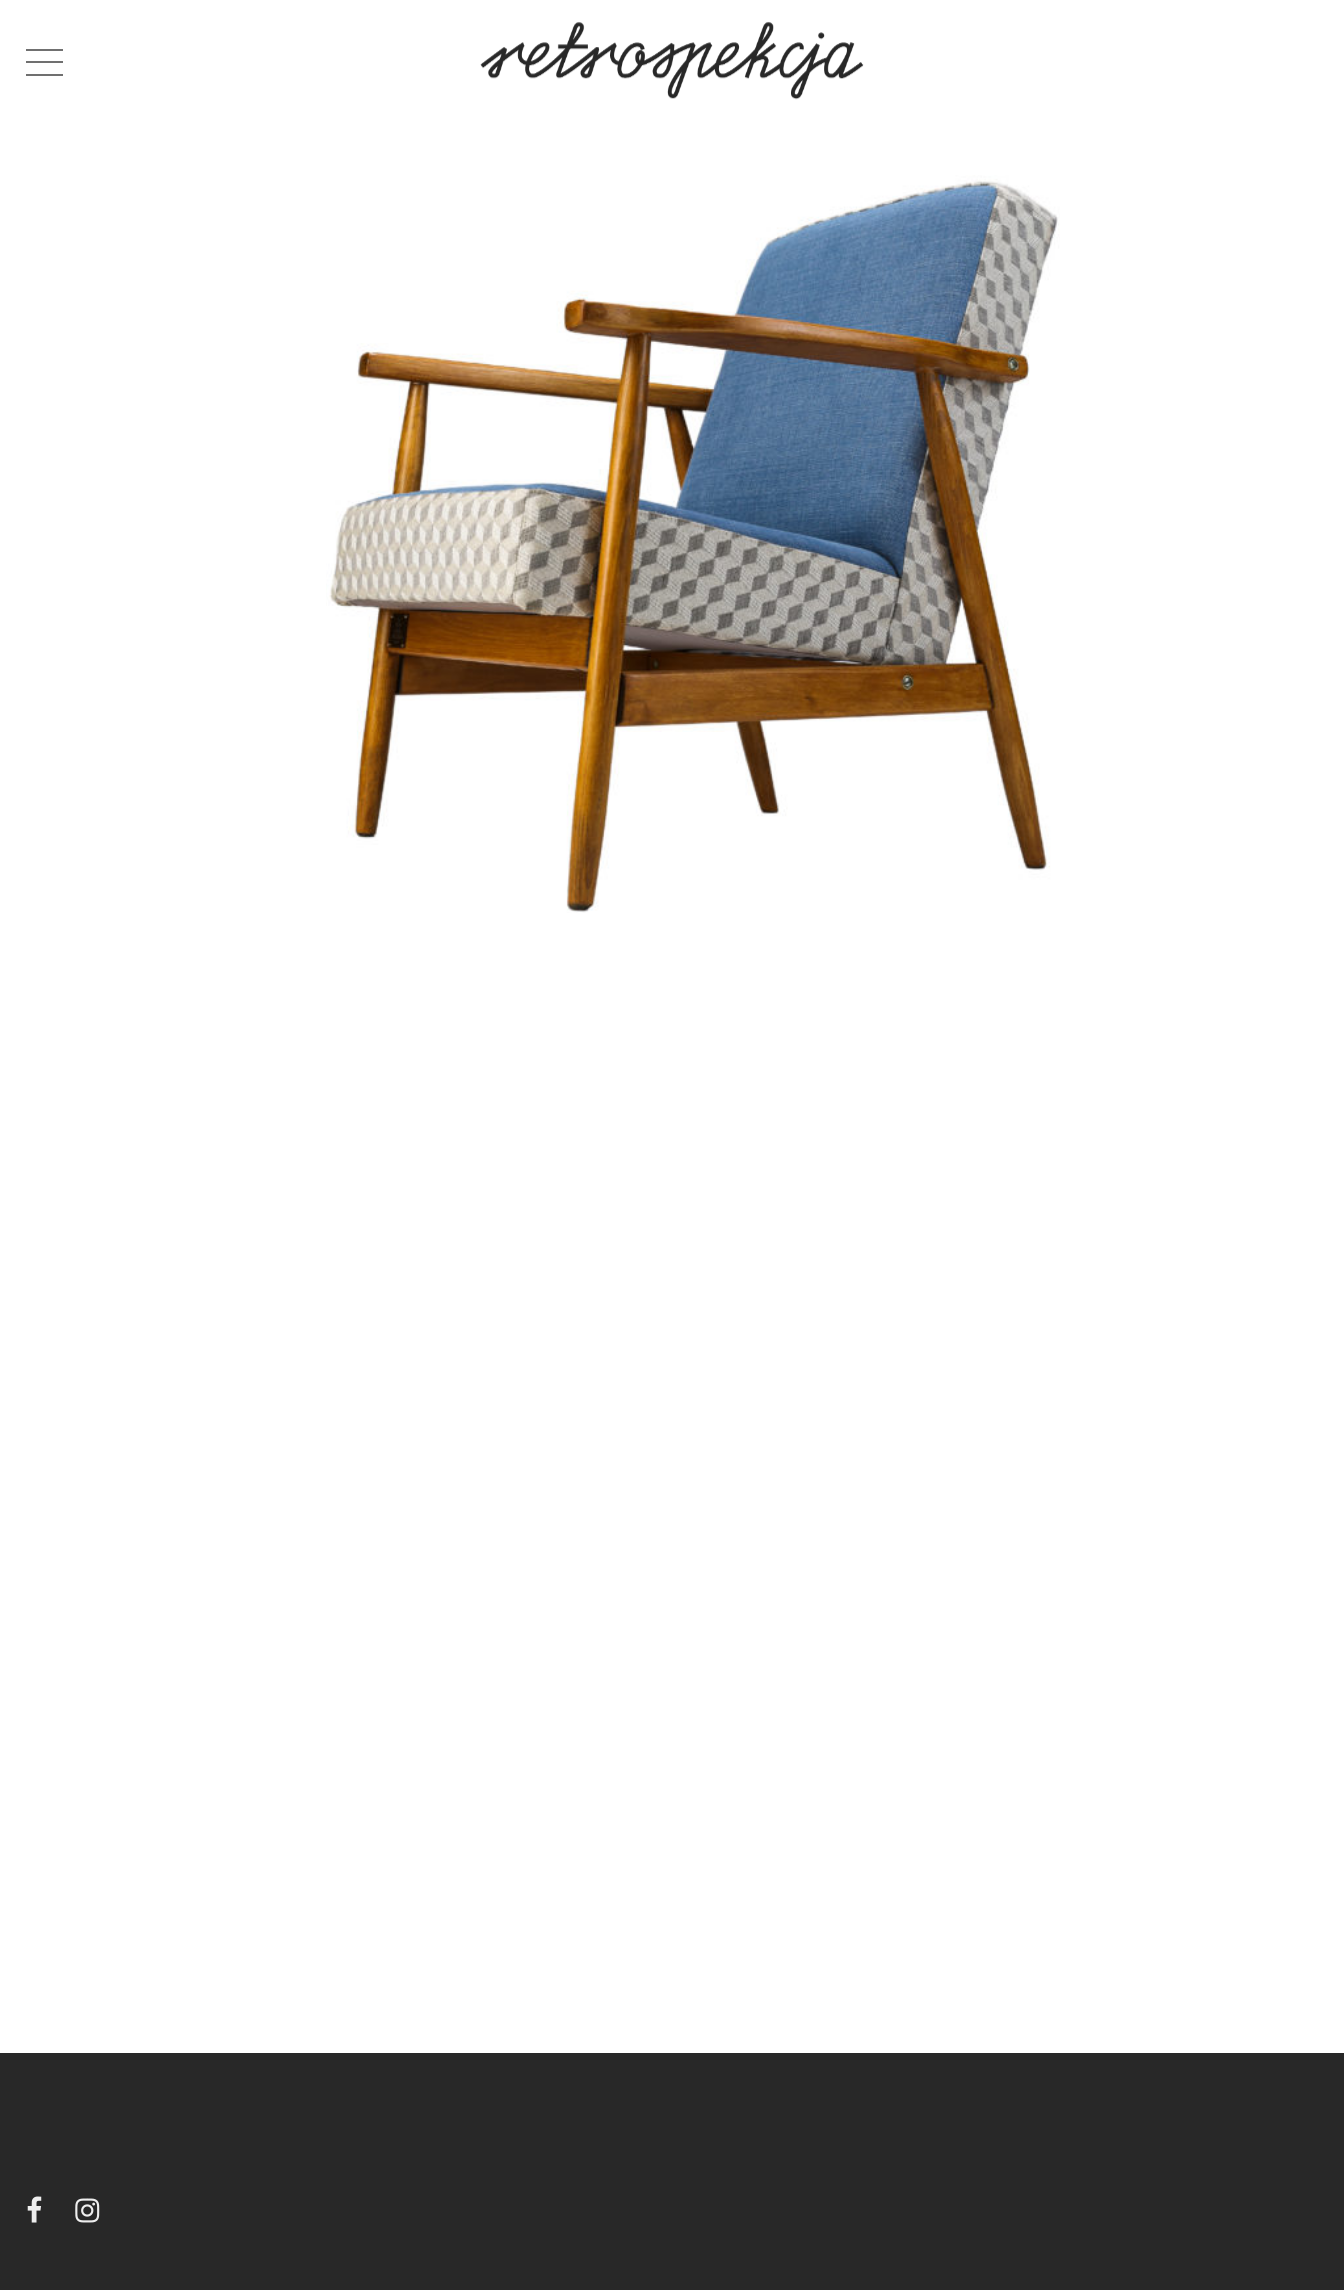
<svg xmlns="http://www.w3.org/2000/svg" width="1344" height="2290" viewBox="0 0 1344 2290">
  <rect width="100%" height="100%" fill="#fff"/>
  <rect x="26" y="49" width="37" height="2" fill="#707070"/>
  <rect x="26" y="61" width="37" height="2" fill="#707070"/>
  <rect x="26" y="74" width="37" height="2" fill="#707070"/>
  <image x="480" y="21" width="384" height="79" href="images/1.png"/>
  <image x="326" y="175" width="734" height="738" href="images/2.png"/>
  <rect x="0" y="2053" width="1344" height="237" fill="#282828"/>
  <image x="27" y="2196" width="15" height="27" href="images/3.png"/>
  <image x="75" y="2198" width="25" height="25" href="images/4.png"/>
</svg>
